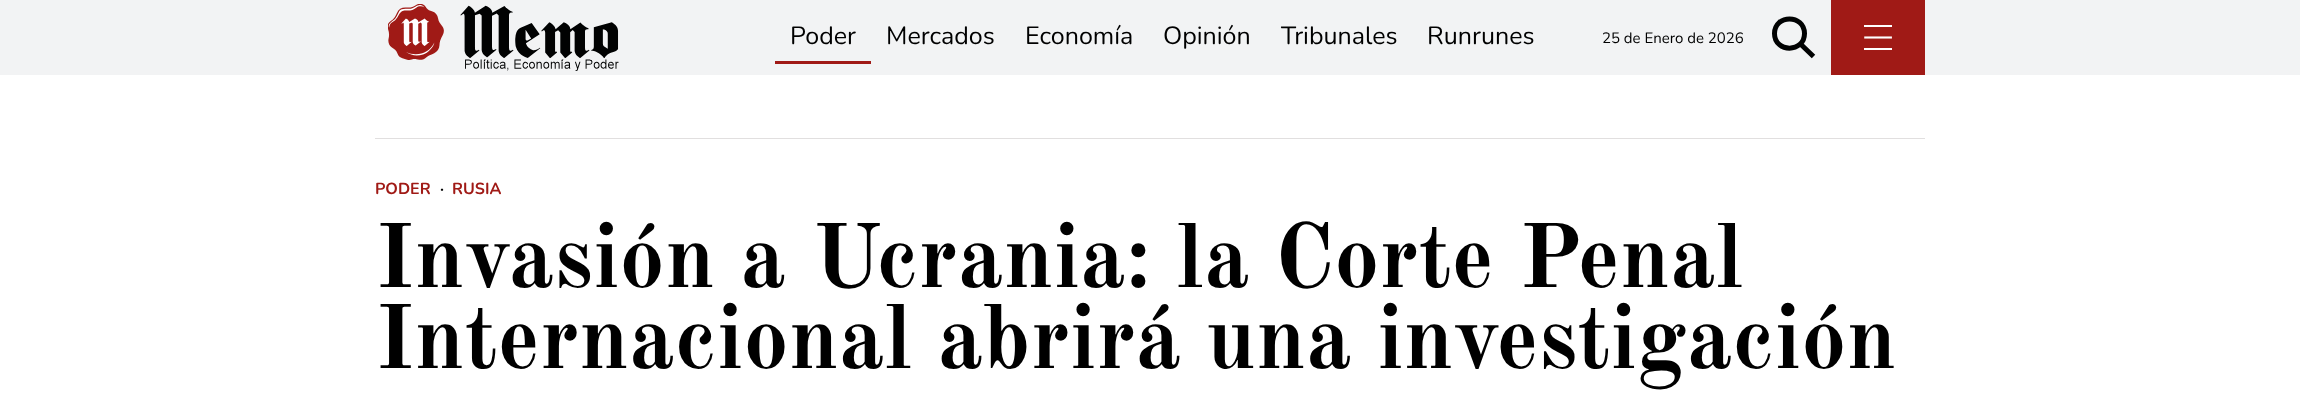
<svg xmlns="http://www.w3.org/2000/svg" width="2300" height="395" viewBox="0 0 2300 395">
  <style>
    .t1 { font: 25px Nunito; fill: #000; }
    .t2 { font: 15px Nunito; fill: #000; }
    .t3 { font: bold 16px Nunito; fill: #a01a16; }
    .t4 { font: bold 16px Nunito; fill: #000; }
    .t5 { font: bold 90px Old Standard TT; fill: #000; }
  </style>
  <rect width="100%" height="100%" fill="#fff"/>
  <rect x="0" y="0" width="2300" height="75" fill="#f2f3f4"/>
  <image x="388" y="4" width="231" height="67" href="images/1.png"/>
  <rect x="775" y="61" width="96" height="3" fill="#a01a16"/>
  <text x="790" y="44" class="t1">Poder</text>
  <text x="886" y="44" class="t1">Mercados</text>
  <text x="1025" y="44" class="t1">Economía</text>
  <text x="1163" y="44" class="t1">Opinión</text>
  <text x="1281" y="44" class="t1">Tribunales</text>
  <text x="1427" y="44" class="t1">Runrunes</text>
  <text x="1602" y="43" class="t2">25 de Enero de 2026</text>
  <path d="M1774.5 33.5C1774.5 14 1804.5 14 1804.5 33.5C1804.5 53 1774.5 53 1774.5 33.5ZM1800.5 44L1813.5 56.5" fill="none" stroke="#010202" stroke-width="5"/>
  <rect x="1831" y="0" width="94" height="75" fill="#a01a16"/>
  <image x="1864" y="25" width="28" height="25" href="images/2.png"/>
  <rect x="375" y="138" width="1550" height="1" fill="#e1dfdf"/>
  <text x="375" y="194" class="t3">PODER</text>
  <text x="440" y="194" class="t4">·</text>
  <text x="452" y="194" class="t3">RUSIA</text>
  <text x="375" y="287" class="t5">Invasión a Ucrania: la Corte Penal</text>
  <text x="375" y="368" class="t5">Internacional abrirá una investigación</text>
</svg>
